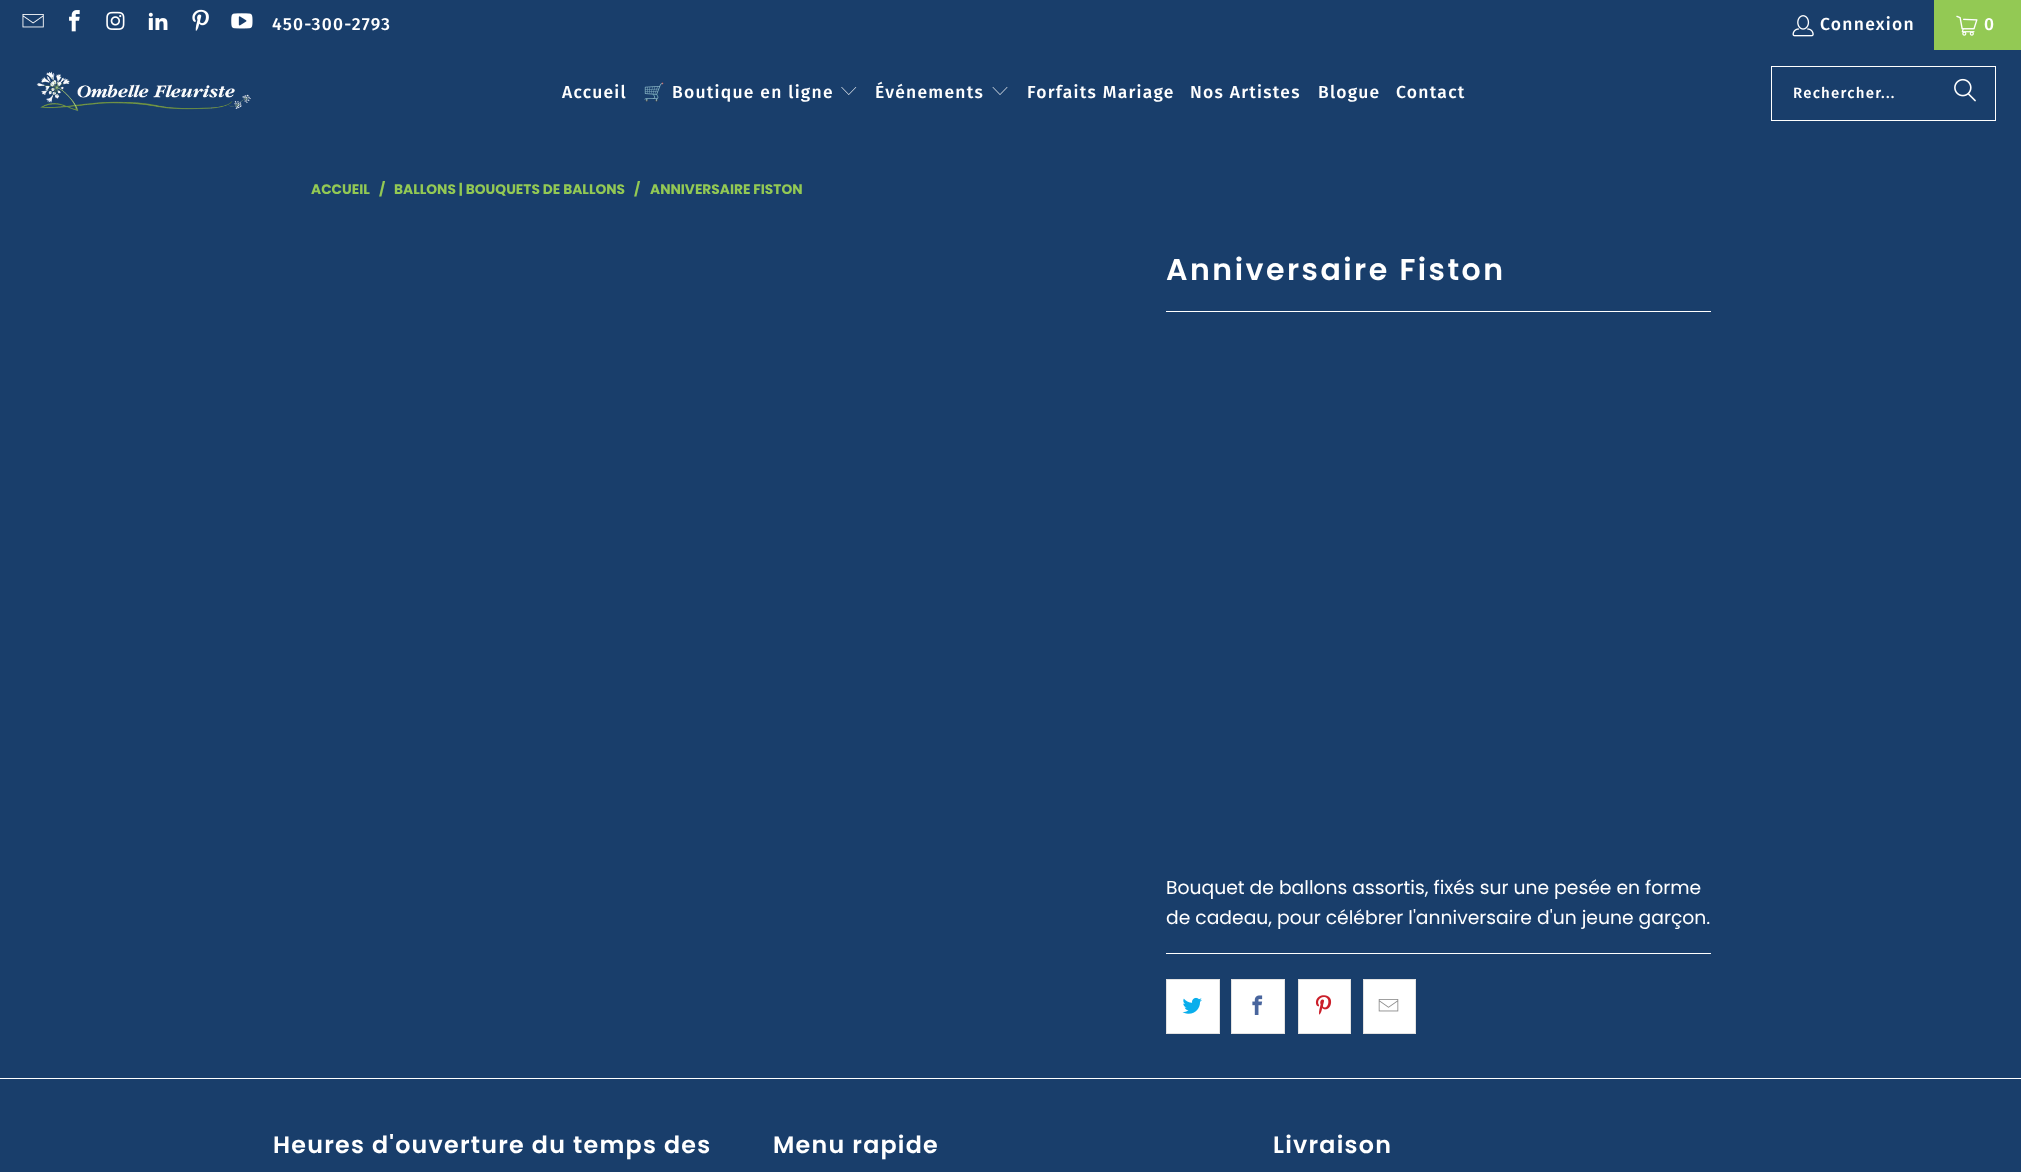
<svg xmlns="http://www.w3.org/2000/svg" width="2021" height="1172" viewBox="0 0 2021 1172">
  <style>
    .t1 { font: 500 17.5px Fira Sans; letter-spacing: 1.25px; fill: #fff; }
    .t2 { font: 17.5px Noto Color Emoji; letter-spacing: 1.25px; fill: #fff; }
    .t3 { font: 500 15px Fira Sans; letter-spacing: 1.25px; fill: #fff; }
    .t4 { font: bold 13.75px Poppins; fill: #93c954; }
    .t5 { font: 600 30px Poppins; letter-spacing: 2.5px; fill: #fff; }
    .t6 { font: 18.75px Poppins; fill: #fff; }
    .t7 { font: 600 23.75px Poppins; letter-spacing: 1.25px; fill: #fff; }
  </style>
  <rect width="100%" height="100%" fill="#193e6b"/>
  <image x="22" y="14" width="22" height="14" href="images/1.png"/>
  <image x="69" y="10" width="11" height="22" href="images/2.png"/>
  <image x="106" y="11" width="19" height="19" href="images/3.png"/>
  <image x="148" y="12" width="20" height="18" href="images/4.png"/>
  <image x="192" y="9" width="17" height="22" href="images/5.png"/>
  <image x="231" y="13" width="22" height="16" href="images/6.png"/>
  <text x="272" y="30" class="t1">450-300-2793</text>
  <image x="1792" y="15" width="22" height="22" href="images/7.png"/>
  <text x="1820" y="30" class="t1">Connexion</text>
  <rect x="1934" y="0" width="87" height="50" fill="#93c954"/>
  <image x="1956" y="15" width="22" height="21" href="images/8.png"/>
  <text x="1984" y="30" class="t1">0</text>
  <image x="36" y="71" width="215" height="41" href="images/9.png"/>
  <text x="562" y="98" class="t1">Accueil</text>
  <text x="643" y="98" class="t2">🛒</text>
  <text x="672" y="98" class="t1">Boutique en ligne</text>
  <image x="841" y="87" width="16" height="8" href="images/10.png"/>
  <text x="875" y="98" class="t1">Événements</text>
  <image x="992" y="87" width="16" height="8" href="images/11.png"/>
  <text x="1027" y="98" class="t1">Forfaits Mariage</text>
  <text x="1190" y="98" class="t1">Nos Artistes</text>
  <text x="1318" y="98" class="t1">Blogue</text>
  <text x="1396" y="98" class="t1">Contact</text>
  <rect x="1771.5" y="66.5" width="224" height="54" fill="none" stroke="#fff"/>
  <text x="1793" y="98" class="t3">Rechercher...</text>
  <image x="1954" y="78" width="22" height="24" href="images/12.png"/>
  <text x="311" y="194" class="t4">ACCUEIL</text>
  <text x="379" y="194" class="t4">/</text>
  <text x="394" y="194" class="t4">BALLONS | BOUQUETS DE BALLONS</text>
  <text x="634" y="194" class="t4">/</text>
  <text x="650" y="194" class="t4">ANNIVERSAIRE FISTON</text>
  <text x="1166" y="280" class="t5">Anniversaire Fiston</text>
  <rect x="1166" y="311" width="545" height="1" fill="#fff"/>
  <text x="1166" y="894" class="t6">Bouquet de ballons assortis, fixés sur une pesée en forme</text>
  <text x="1166" y="924" class="t6">de cadeau, pour célébrer l'anniversaire d'un jeune garçon.</text>
  <rect x="1166" y="953" width="545" height="1" fill="#fff"/>
  <rect x="1166.5" y="979.5" width="53" height="54" fill="#fff" stroke="#e2e2e2"/>
  <image x="1182" y="997" width="20" height="17" href="images/13.png"/>
  <rect x="1231.5" y="979.5" width="53" height="54" fill="#fff" stroke="#e2e2e2"/>
  <image x="1252" y="995" width="11" height="20" href="images/14.png"/>
  <rect x="1298.5" y="979.5" width="52" height="54" fill="#fff" stroke="#e2e2e2"/>
  <image x="1315" y="995" width="17" height="20" href="images/15.png"/>
  <rect x="1363.5" y="979.5" width="52" height="54" fill="#fff" stroke="#e2e2e2"/>
  <image x="1378" y="999" width="21" height="13" href="images/16.png"/>
  <rect x="0" y="1078" width="2021" height="1" fill="#fff"/>
  <text x="273" y="1153" class="t7">Heures d'ouverture du temps des</text>
  <text x="773" y="1153" class="t7">Menu rapide</text>
  <text x="1273" y="1153" class="t7">Livraison</text>
</svg>
